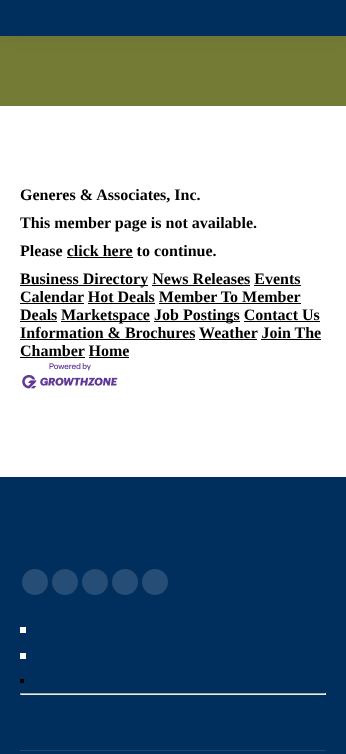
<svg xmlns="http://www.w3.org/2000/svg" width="346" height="754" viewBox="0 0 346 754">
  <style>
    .t1 { font: bold 16px Liberation Serif; fill: #000; }
  </style>
  <rect width="100%" height="100%" fill="#fff"/>
  <rect x="0" y="36" width="346" height="70" fill="#737b35"/>
  <rect x="-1" y="-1" width="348" height="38" fill="#00000012" filter="blur(7.5px)"/>
  <rect x="0" y="0" width="346" height="36" fill="#002e5d"/>
  <rect x="20" y="35" width="306" height="1" fill="#062f58"/>
  <text x="20" y="200" class="t1">Generes &amp; Associates, Inc.</text>
  <text x="20" y="228" class="t1">This member page is not available.</text>
  <text x="20" y="256" class="t1">Please click here to continue.</text>
  <rect x="67" y="257" width="66" height="1" fill="#000"/>
  <rect x="20" y="285" width="128" height="1" fill="#000"/>
  <text x="20" y="284" class="t1">Business Directory News Releases Events</text>
  <rect x="152" y="285" width="98" height="1" fill="#000"/>
  <text x="20" y="302" class="t1">Calendar Hot Deals Member To Member</text>
  <rect x="254" y="285" width="47" height="1" fill="#000"/>
  <rect x="20" y="303" width="64" height="1" fill="#000"/>
  <rect x="88" y="303" width="67" height="1" fill="#000"/>
  <text x="20" y="320" class="t1">Deals</text>
  <rect x="159" y="303" width="142" height="1" fill="#000"/>
  <rect x="20" y="321" width="37" height="1" fill="#000"/>
  <rect x="61" y="321" width="89" height="1" fill="#000"/>
  <text x="61" y="320" class="t1">Marketspace</text>
  <rect x="154" y="321" width="86" height="1" fill="#000"/>
  <text x="154" y="320" class="t1">Job Postings Contact Us</text>
  <rect x="244" y="321" width="76" height="1" fill="#000"/>
  <text x="20" y="338" class="t1">Information &amp; Brochures Weather Join The</text>
  <rect x="20" y="339" width="175" height="1" fill="#000"/>
  <rect x="199" y="339" width="58" height="1" fill="#000"/>
  <text x="20" y="356" class="t1">Chamber Home</text>
  <rect x="261" y="339" width="60" height="1" fill="#000"/>
  <rect x="20" y="357" width="65" height="1" fill="#000"/>
  <rect x="89" y="357" width="40" height="1" fill="#000"/>
  <image x="22" y="363" width="96" height="26" href="images/1.png"/>
  <rect x="0" y="477" width="346" height="277" fill="#002e5d"/>
  <circle cx="35" cy="582" r="13" fill="#264d75"/>
  <circle cx="65" cy="582" r="13" fill="#264d75"/>
  <circle cx="95" cy="582" r="13" fill="#264d75"/>
  <circle cx="125" cy="582" r="13" fill="#264d75"/>
  <circle cx="155" cy="582" r="13" fill="#264d75"/>
  <rect x="20" y="627" width="6" height="6" fill="#fff"/>
  <rect x="20" y="653" width="6" height="6" fill="#fff"/>
  <rect x="20" y="679" width="4" height="4" fill="#000"/>
  <rect x="20" y="693" width="306" height="1" fill="#9f9f9f"/>
  <rect x="325" y="693" width="1" height="2" fill="#eee"/>
  <rect x="20" y="694" width="306" height="1" fill="#eee"/>
  <rect x="20" y="693" width="1" height="2" fill="#9f9f9f"/>
  <rect x="20" y="750" width="306" height="1" fill="#1f4770"/>
</svg>
